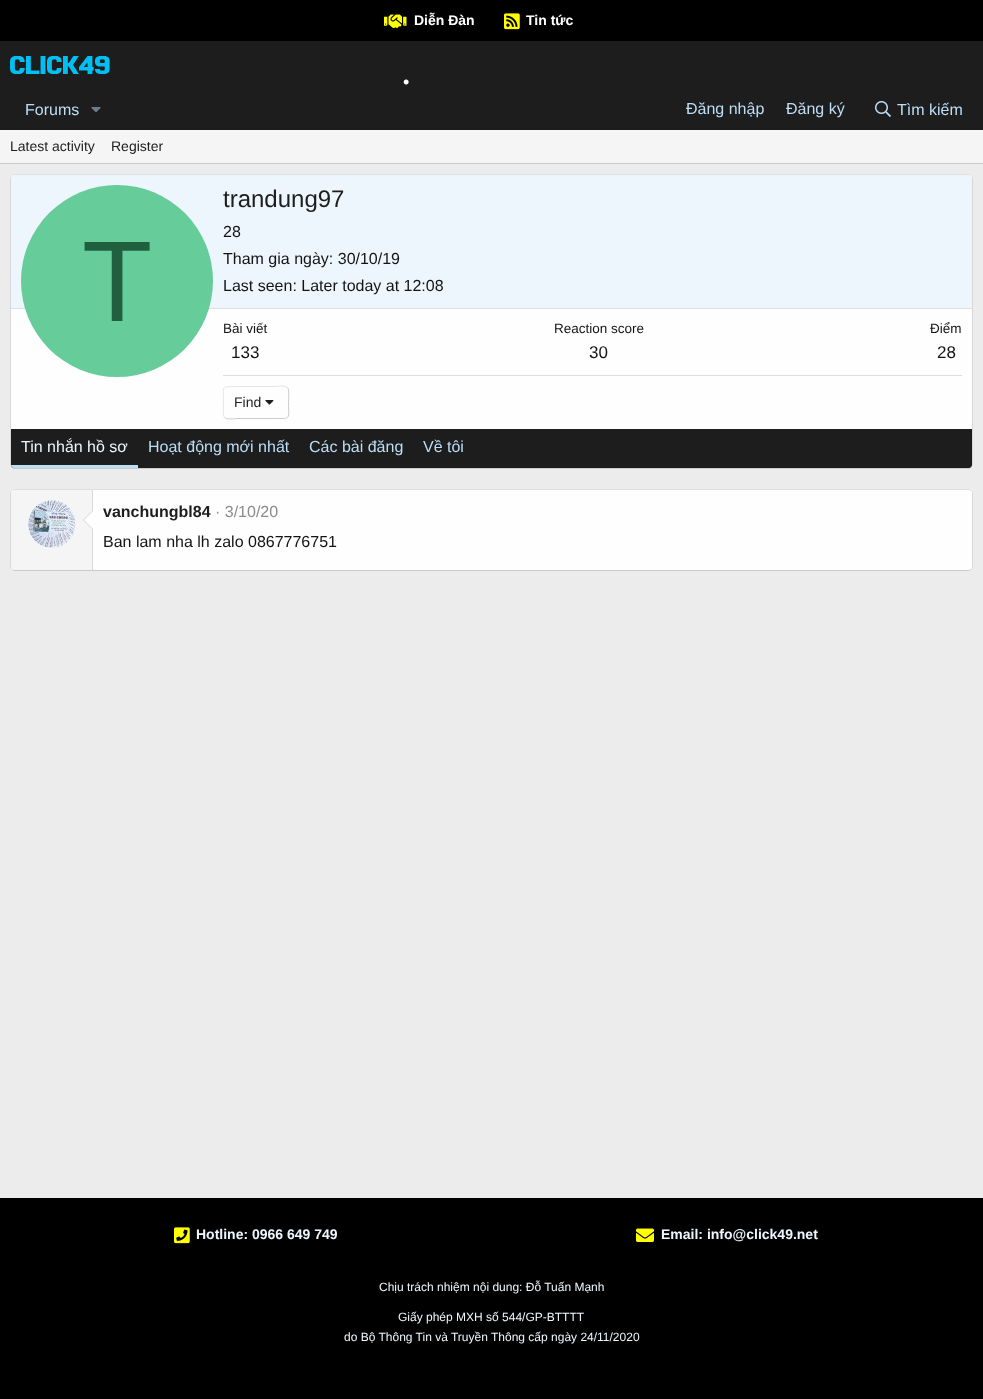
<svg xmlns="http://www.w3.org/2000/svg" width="983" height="1399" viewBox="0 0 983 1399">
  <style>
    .t1 { font: bold 14px Liberation Sans; fill: #fff; }
    .t2 { font: 16px Liberation Sans; fill: #bcdef5; }
    .t3 { font: 14px Liberation Sans; fill: #1d1d1d; }
    .t4 { font: 115px Liberation Sans; fill: #206040; }
    .t5 { font: 24px Liberation Sans; fill: #1d1d1d; }
    .t6 { font: 16px Liberation Sans; fill: #141414; }
    .t7 { font: 13.5px Liberation Sans; fill: #141414; }
    .t8 { font: 17px Liberation Sans; fill: #141414; }
    .t9 { font: 16px Liberation Sans; fill: #edf6fd; }
    .t10 { font: bold 16px Liberation Sans; fill: #1d1d1d; }
    .t11 { font: 16px Liberation Sans; fill: #8c8c8c; }
    .t12 { font: bold 14px Liberation Sans; fill: #edf6fd; }
    .t13 { font: 12px Liberation Sans; fill: #edf6fd; }
    .t14 { font: 18px Liberation Sans; fill: #fff; }
  </style>
  <rect width="100%" height="100%" fill="#ececec"/>
  <rect x="0" y="0" width="983" height="41" fill="#000"/>
  <image x="384" y="14" width="23" height="14" href="images/1.png"/>
  <text x="414" y="25" class="t1">Diễn Đàn</text>
  <image x="504" y="13" width="16" height="17" href="images/2.png"/>
  <text x="526" y="25" class="t1">Tin tức</text>
  <rect x="0" y="41" width="983" height="89" fill="#1d1d1d"/>
  <image x="10" y="56" width="100" height="18" href="images/3.png"/>
  <text x="25" y="115" class="t2">Forums</text>
  <image x="91" y="107" width="10" height="6" href="images/4.png"/>
  <text x="686" y="114" class="t2">Đăng nhập</text>
  <text x="786" y="114" class="t2">Đăng ký</text>
  <image x="875" y="101" width="16" height="16" href="images/5.png"/>
  <text x="897" y="115" class="t2">Tìm kiếm</text>
  <rect x="0" y="130" width="983" height="33" fill="#f5f5f5"/>
  <rect x="0" y="163" width="983" height="1" fill="#cbcbcb"/>
  <text x="10" y="151" class="t3">Latest activity</text>
  <text x="111" y="151" class="t3">Register</text>
  <rect x="10" y="174" width="963" height="295" rx="4" fill="#fefefe"/>
  <path d="M11.5 175.5L14 174.5H969L971.5 175.5" fill="none" stroke="#dfdfdf"/>
  <path d="M971.5 175.5L972.5 178V465L971.5 467.5" fill="none" stroke="#d8d8d8"/>
  <path d="M971.5 467.5L969 468.5H14L11.5 467.5" fill="none" stroke="#cbcbcb"/>
  <path d="M11.5 467.5L10.5 465V178L11.5 175.5" fill="none" stroke="#d8d8d8"/>
  <path d="M14 175H969C970.5 175 972 176.5 972 178V309H11V178C11 176.5 12.5 175 14 175Z" fill="#edf6fd"/>
  <rect x="11" y="308" width="961" height="1" fill="#dfdfdf"/>
  <circle cx="117" cy="281" r="96" fill="#6c9"/>
  <text x="82" y="321" class="t4">T</text>
  <text x="223" y="207" class="t5">trandung97</text>
  <text x="223" y="237" class="t6">28</text>
  <text x="223" y="264" class="t6">Tham gia ngày: 30/10/19</text>
  <text x="223" y="291" class="t6">Last seen: Later today at 12:08</text>
  <text x="223" y="333" class="t7">Bài viết</text>
  <text x="231" y="358" class="t8">133</text>
  <text x="554" y="333" class="t7">Reaction score</text>
  <text x="589" y="358" class="t8">30</text>
  <text x="930" y="333" class="t7">Điểm</text>
  <text x="937" y="358" class="t8">28</text>
  <rect x="223" y="375" width="739" height="1" fill="#dfdfdf"/>
  <path d="M287.5 387.5C289.5 389.5 288.5 399.5 288.5 402.5C288.5 419.5 291.5 418.5 275.5 418.5H236.5C236.5 418.5 227 420 224.5 417.5" fill="none" stroke="#cbcbcb"/>
  <path d="M224.5 417.5C222.5 415.5 223.5 405.5 223.5 402.5C223.5 385.5 220.5 386.5 236.5 386.5H275.5C275.5 386.5 285 385 287.5 387.5" fill="none" stroke="#e5e5e5"/>
  <text x="234" y="407" class="t3">Find</text>
  <image x="265" y="400" width="9" height="5" href="images/6.png"/>
  <path d="M11 429H972V465C972 466.5 970.5 468 969 468H14C12.5 468 11 466.5 11 465Z" fill="#1d1d1d"/>
  <path d="M11 465H138V468H14C12.5 468 11 466.5 11 465Z" fill="#bcdef5"/>
  <text x="21" y="452" class="t9">Tin nhắn hồ sơ</text>
  <text x="148" y="452" class="t2">Hoạt động mới nhất</text>
  <text x="309" y="452" class="t2">Các bài đăng</text>
  <text x="423" y="452" class="t2">Về tôi</text>
  <rect x="10" y="489" width="963" height="82" rx="4" fill="#fefefe"/>
  <path d="M11.5 490.5L14 489.5H969L971.5 490.5" fill="none" stroke="#dfdfdf"/>
  <path d="M971.5 490.5L972.5 492.5V567.5L971.5 569.5" fill="none" stroke="#d8d8d8"/>
  <path d="M971.5 569.5L969 570.5H14L11.5 569.5" fill="none" stroke="#cbcbcb"/>
  <path d="M11.5 569.5L10.5 567.5V492.5L11.5 490.5" fill="none" stroke="#d8d8d8"/>
  <path d="M14 490H93V570H14C12.5 570 11 568.5 11 567V493C11 491.5 12.5 490 14 490Z" fill="#f5f5f5"/>
  <rect x="92" y="490" width="1" height="80" fill="#d8d8d8"/>
  <circle cx="52" cy="524" r="24" fill="#fefefe"/>
  <image x="28" y="500" width="48" height="48" href="images/7.png"/>
  <path d="M93 510V530L83 520Z" fill="#d8d8d8"/>
  <path d="M93 511V529L84 520Z" fill="#fefefe"/>
  <text x="103" y="517" class="t10">vanchungbl84</text>
  <text x="215" y="517" class="t11">· 3/10/20</text>
  <text x="103" y="547" class="t6">Ban lam nha lh zalo 0867776751</text>
  <rect x="0" y="1198" width="983" height="201" fill="#000"/>
  <image x="174" y="1227" width="16" height="17" href="images/8.png"/>
  <text x="196" y="1239" class="t12">Hotline: 0966 649 749</text>
  <image x="636" y="1228" width="18" height="14" href="images/9.png"/>
  <text x="661" y="1239" class="t12">Email: info@click49.net</text>
  <text x="379" y="1291" class="t13">Chịu trách nhiệm nội dung: Đỗ Tuấn Mạnh</text>
  <text x="398" y="1321" class="t13">Giấy phép MXH số 544/GP-BTTTT</text>
  <text x="344" y="1341" class="t13">do Bộ Thông Tin và Truyền Thông cấp ngày 24/11/2020</text>
  <text x="403" y="88" class="t14">•</text>
</svg>
